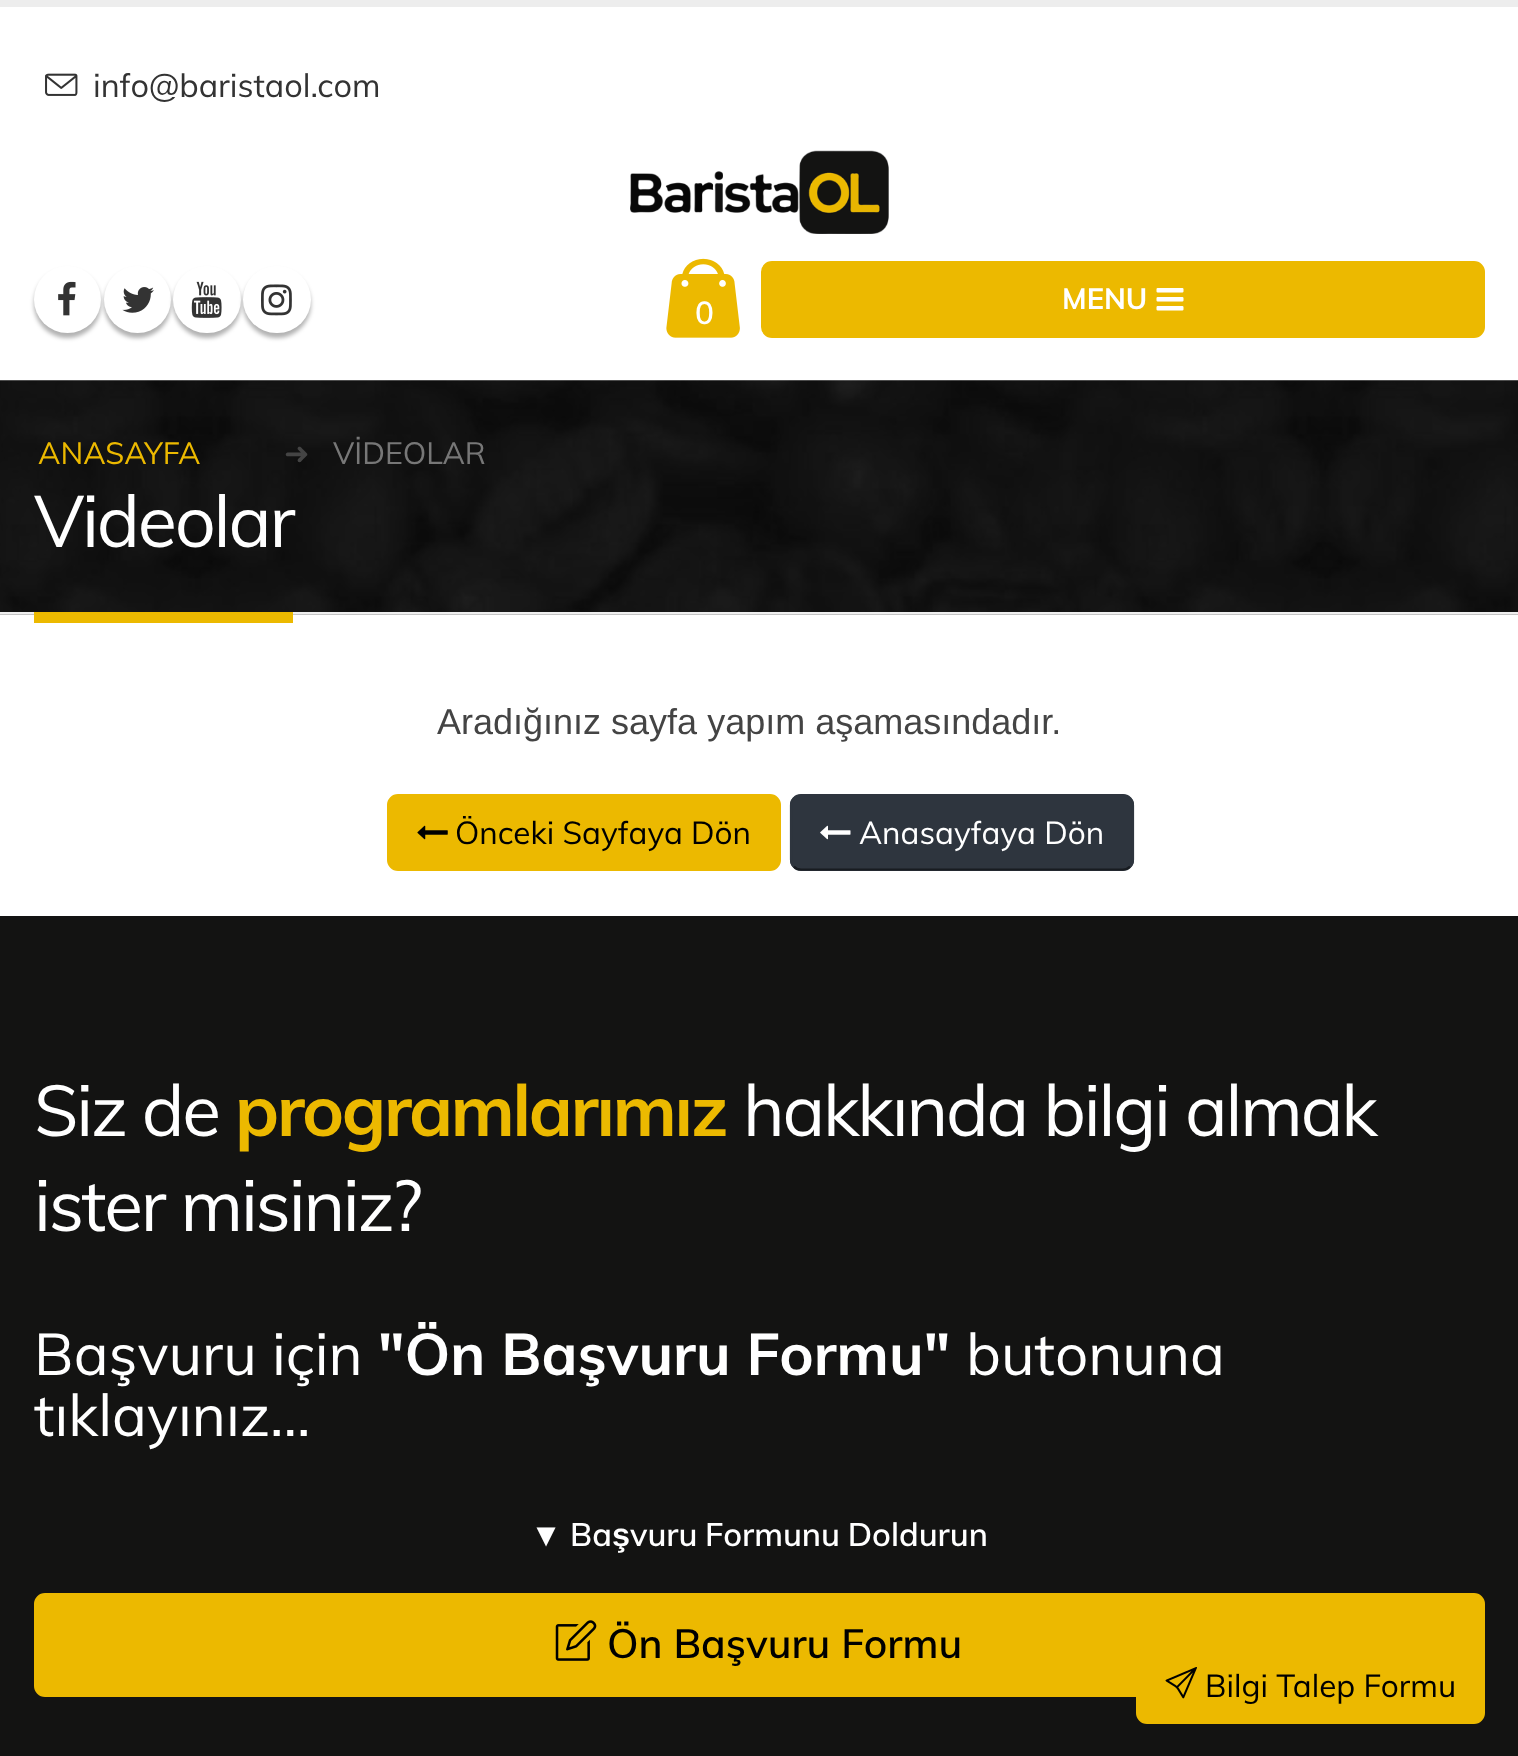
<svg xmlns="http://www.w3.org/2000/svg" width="1518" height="1756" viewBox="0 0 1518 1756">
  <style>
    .t1 { font: 32.4px Muli; fill: #333; }
    .t2 { font: 600 31.5px Muli; fill: #fff; }
    .t3 { font: bold 29px Muli; fill: #fff; }
    .t4 { font: 30.5px Muli; fill: #ecb900; }
    .t5 { font: 30.5px DejaVu Sans; fill: #444; }
    .t6 { font: 30.5px Muli; fill: #777; }
    .t7 { font: 72px Muli; letter-spacing: -2.25px; fill: #fff; }
    .t8 { font: 36px Liberation Sans; fill: #444; }
    .t9 { font: 31.5px Muli; fill: #000; }
    .t10 { font: 31.5px Muli; fill: #fff; }
    .t11 { font: 71.25px Muli; letter-spacing: -2.25px; fill: #fff; }
    .t12 { font: bold 71.25px Muli; letter-spacing: -2.25px; fill: #ecb900; }
    .t13 { font: 58.25px Muli; fill: #fff; }
    .t14 { font: bold 58.25px Muli; fill: #fff; }
    .t15 { font: bold 32.4px Liberation Sans; fill: #fff; }
    .t16 { font: 600 32.4px Muli; fill: #fff; }
    .t17 { font: 600 40.5px Muli; fill: #000; }
  </style>
  <rect width="100%" height="100%" fill="#fff"/>
  <rect x="0" y="0" width="1518" height="7" fill="#ededed"/>
  <image x="45" y="73" width="33" height="23" href="images/1.png"/>
  <text x="93" y="97" class="t1">info@baristaol.com</text>
  <image x="630" y="150" width="259" height="84" href="images/2.png"/>
  <rect x="34" y="270" width="67" height="68" rx="33.5" fill="#0000004d" filter="blur(2px)"/>
  <circle cx="67.5" cy="299.5" r="33.5" fill="#fff"/>
  <image x="58" y="281" width="18" height="35" href="images/3.png"/>
  <rect x="104" y="270" width="67" height="68" rx="33.5" fill="#0000004d" filter="blur(2px)"/>
  <circle cx="137.5" cy="299.5" r="33.5" fill="#fff"/>
  <image x="122" y="287" width="32" height="26" href="images/4.png"/>
  <rect x="173" y="270" width="68" height="68" rx="34" fill="#0000004d" filter="blur(2px)"/>
  <rect x="173" y="266" width="68" height="67" rx="33.5" fill="#fff"/>
  <image x="191" y="281" width="31" height="37" href="images/5.png"/>
  <rect x="243" y="270" width="68" height="68" rx="34" fill="#0000004d" filter="blur(2px)"/>
  <rect x="243" y="266" width="68" height="67" rx="33.5" fill="#fff"/>
  <image x="261" y="284" width="31" height="32" href="images/6.png"/>
  <image x="666" y="258" width="74" height="80" href="images/7.png"/>
  <text x="695" y="324" class="t2">0</text>
  <rect x="762" y="262" width="722" height="75" rx="10" fill="#ecb900" stroke="#ecb900" stroke-width="2"/>
  <text x="1062" y="309" class="t3">MENU</text>
  <image x="1156" y="288" width="28" height="23" href="images/8.png"/>
  <image x="0" y="380" width="1518" height="235" href="images/9.png"/>
  <rect x="0" y="612" width="1518" height="2" fill="#eee"/>
  <text x="38" y="464" class="t4">ANASAYFA</text>
  <text x="284" y="464" class="t5">➜</text>
  <text x="333" y="464" class="t6">VİDEOLAR</text>
  <rect x="34" y="612" width="259" height="11" fill="#ecb900"/>
  <text x="34" y="547" class="t7">Videolar</text>
  <text x="437" y="734" class="t8">Aradığınız sayfa yapım aşamasındadır.</text>
  <rect x="388" y="795" width="392" height="75" rx="10" fill="#ecb900" stroke="#ecb900" stroke-width="2"/>
  <image x="417" y="825" width="31" height="15" href="images/10.png"/>
  <text x="455" y="844" class="t9">Önceki Sayfaya Dön</text>
  <rect x="790" y="794" width="344" height="77" rx="11" fill="#2e353e"/>
  <path d="M1130 866.5C1128 868.5 1125.5 869.5 1123 869.5H801C798.5 869.5 795.5 868.5 794 866.5" fill="none" stroke="#181c21" stroke-width="2.2"/>
  <path d="M794 866.5C792 865 791 862 791 859.5V805.5C791 803 792 800 794 798.5C795.5 796.5 798.5 795.5 801 795.5H1123C1125.5 795.5 1128 796.5 1130 798.5C1132 800 1133 803 1133 805.5V859.5C1133 862 1132 865 1130 866.5" fill="none" stroke="#2e353e" stroke-width="2.2"/>
  <image x="820" y="825" width="31" height="15" href="images/11.png"/>
  <text x="859" y="844" class="t10">Anasayfaya Dön</text>
  <rect x="0" y="916" width="1518" height="840" fill="#131312"/>
  <text x="34" y="1136" class="t11">Siz de</text>
  <text x="235" y="1136" class="t12">programlarımız</text>
  <text x="743" y="1136" class="t11">hakkında bilgi almak</text>
  <text x="34" y="1231" class="t11">ister misiniz?</text>
  <text x="34" y="1375" class="t13">Başvuru için</text>
  <text x="378" y="1375" class="t14">"Ön Başvuru Formu"</text>
  <text x="966" y="1375" class="t13">butonuna</text>
  <text x="34" y="1436" class="t13">tıklayınız...</text>
  <text x="530" y="1546" class="t15">▼</text>
  <text x="570" y="1546" class="t16">Ba</text>
  <text x="612" y="1546" class="t15">ş</text>
  <text x="630" y="1546" word-spacing="-1" class="t16">vuru Formunu Doldurun</text>
  <rect x="35" y="1594" width="1449" height="102" rx="10" fill="#ecb900" stroke="#ecb900" stroke-width="2"/>
  <image x="555" y="1620" width="42" height="41" href="images/12.png"/>
  <text x="607" y="1658" class="t17">Ön Başvuru Formu</text>
  <rect x="1137" y="1648" width="347" height="75" rx="10" fill="#ecb900" stroke="#ecb900" stroke-width="2"/>
  <image x="1165" y="1667" width="32" height="32" href="images/13.png"/>
  <text x="1205" y="1697" class="t9">Bilgi Talep Formu</text>
</svg>
